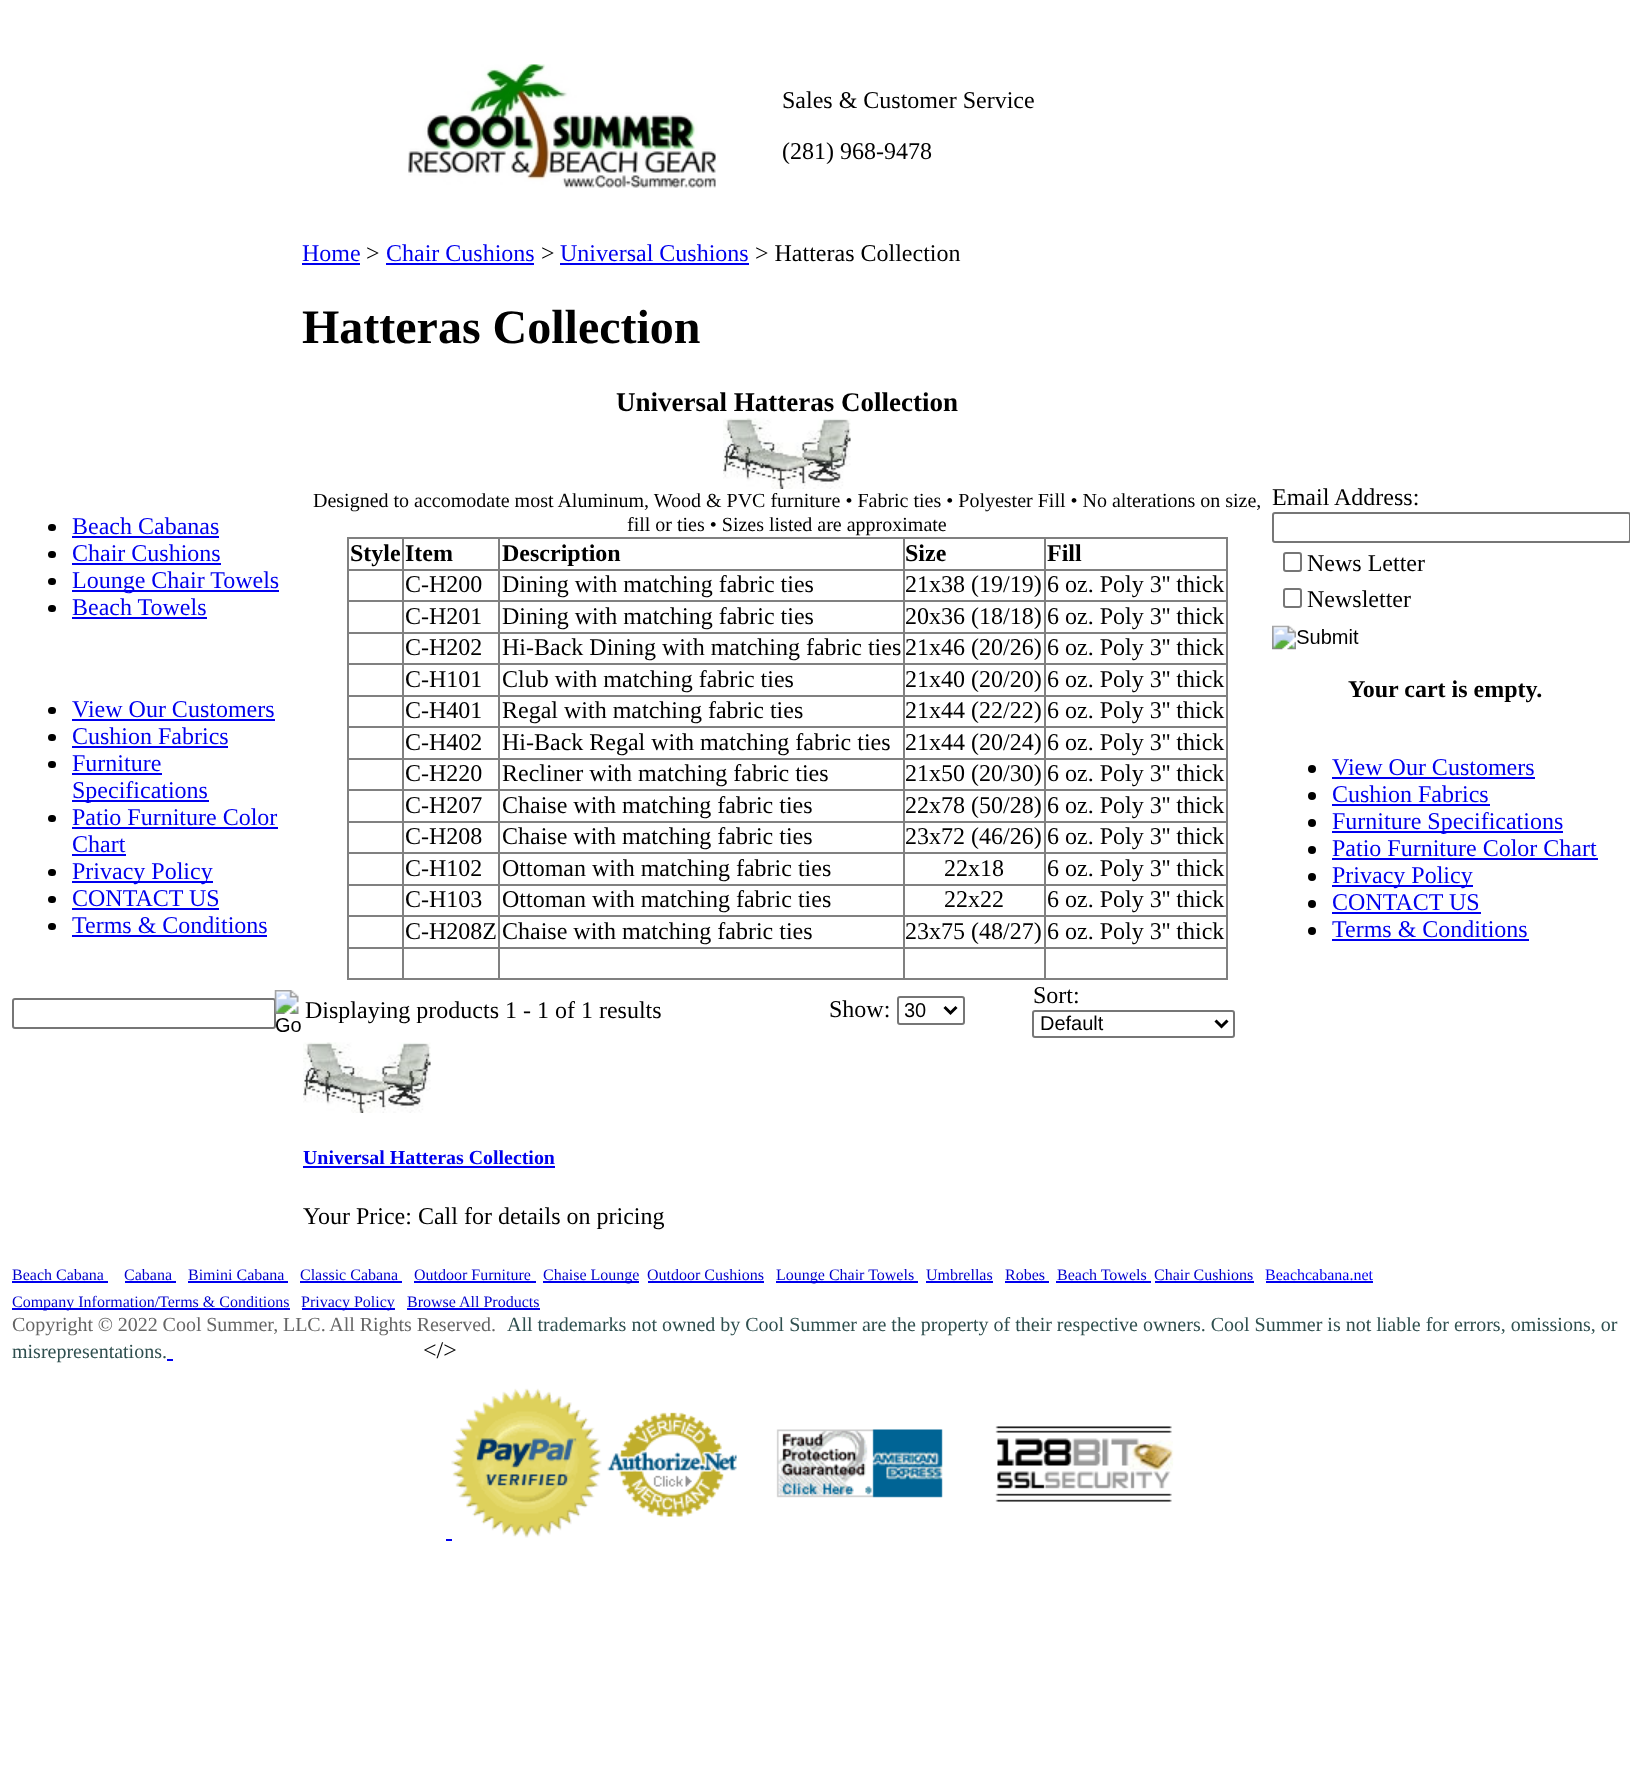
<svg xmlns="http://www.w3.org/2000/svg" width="1630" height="1784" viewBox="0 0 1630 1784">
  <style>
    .t1 { font: 24px Liberation Serif; fill: #000; }
    .t2 { font: 24px Liberation Serif; fill: #00e; }
    .t3 { font: bold 48px Liberation Serif; fill: #000; }
    .t4 { font: bold 27px Liberation Serif; fill: #000; }
    .t5 { font: 20px Liberation Serif; fill: #000; }
    .t6 { font: bold 24px Liberation Serif; fill: #000; }
    .t7 { font: 20px Liberation Sans; fill: #000; }
    .t8 { font: bold 19.9px Liberation Serif; fill: #00e; }
    .t9 { font: 16px Liberation Serif; fill: #0000cd; }
    .t10 { font: 16px Liberation Serif; fill: #00e; }
    .t11 { font: 20px Liberation Serif; fill: #666; }
    .t12 { font: 20px Liberation Serif; fill: #2f4f4f; }
  </style>
  <defs>
    <clipPath id="clip1"><rect x="905" y="998" width="34" height="25"/></clipPath>
  </defs>
  <rect width="100%" height="100%" fill="#fff"/>
  <image x="408" y="64" width="308" height="124" href="images/1.png"/>
  <text x="782" y="108" class="t1">Sales &amp; Customer Service</text>
  <text x="782" y="159" class="t1">(281) 968-9478</text>
  <rect x="48" y="524" width="8" height="7" rx="3.5" fill="#000"/>
  <text x="72" y="534" class="t2">Beach Cabanas</text>
  <rect x="72" y="536" width="147" height="2" fill="#00e"/>
  <rect x="48" y="551" width="8" height="7" rx="3.5" fill="#000"/>
  <text x="72" y="561" class="t2">Chair Cushions</text>
  <rect x="72" y="563" width="149" height="2" fill="#00e"/>
  <rect x="48" y="578" width="8" height="7" rx="3.5" fill="#000"/>
  <rect x="72" y="590" width="207" height="2" fill="#00e"/>
  <text x="72" y="588" class="t2">Lounge Chair Towels</text>
  <rect x="48" y="605" width="8" height="7" rx="3.5" fill="#000"/>
  <text x="72" y="615" class="t2">Beach Towels</text>
  <rect x="72" y="617" width="135" height="2" fill="#00e"/>
  <rect x="48" y="707" width="8" height="7" rx="3.5" fill="#000"/>
  <text x="72" y="717" class="t2">View Our Customers</text>
  <rect x="72" y="719" width="203" height="2" fill="#00e"/>
  <rect x="48" y="734" width="8" height="7" rx="3.5" fill="#000"/>
  <text x="72" y="744" class="t2">Cushion Fabrics</text>
  <rect x="72" y="746" width="156" height="2" fill="#00e"/>
  <rect x="48" y="761" width="8" height="7" rx="3.5" fill="#000"/>
  <text x="72" y="771" class="t2">Furniture</text>
  <rect x="72" y="773" width="90" height="2" fill="#00e"/>
  <rect x="72" y="800" width="137" height="2" fill="#00e"/>
  <text x="72" y="798" class="t2">Specifications</text>
  <rect x="48" y="815" width="8" height="7" rx="3.5" fill="#000"/>
  <text x="72" y="825" class="t2">Patio Furniture Color</text>
  <rect x="72" y="827" width="206" height="2" fill="#00e"/>
  <text x="72" y="852" class="t2">Chart</text>
  <rect x="72" y="854" width="54" height="2" fill="#00e"/>
  <rect x="48" y="869" width="8" height="7" rx="3.5" fill="#000"/>
  <rect x="72" y="881" width="141" height="2" fill="#00e"/>
  <text x="72" y="879" class="t2">Privacy Policy</text>
  <rect x="48" y="896" width="8" height="7" rx="3.5" fill="#000"/>
  <text x="72" y="906" class="t2">CONTACT US</text>
  <rect x="72" y="908" width="147" height="2" fill="#00e"/>
  <rect x="48" y="923" width="8" height="7" rx="3.5" fill="#000"/>
  <text x="72" y="933" class="t2">Terms &amp; Conditions</text>
  <rect x="72" y="935" width="195" height="2" fill="#00e"/>
  <rect x="13" y="999" width="262" height="29" rx="2" fill="none" stroke="#767676" stroke-width="2"/>
  <image x="274" y="990" width="27" height="42" href="images/2.png"/>
  <text x="302" y="261" class="t2">Home</text>
  <rect x="302" y="263" width="58" height="2" fill="#00e"/>
  <text x="366" y="261" class="t1">&gt;</text>
  <text x="386" y="261" class="t2">Chair Cushions</text>
  <rect x="386" y="263" width="148" height="2" fill="#00e"/>
  <text x="541" y="261" class="t1">&gt;</text>
  <text x="560" y="261" class="t2">Universal Cushions</text>
  <rect x="560" y="263" width="189" height="2" fill="#00e"/>
  <text x="755" y="261" class="t1">&gt; Hatteras Collection</text>
  <text x="302" y="343" class="t3">Hatteras Collection</text>
  <text x="616" y="411" class="t4">Universal Hatteras Collection</text>
  <image x="723" y="418" width="128" height="71" href="images/3.png"/>
  <text x="313" y="507" class="t5">Designed to accomodate most Aluminum, Wood &amp; PVC furniture • Fabric ties • Polyester Fill • No alterations on size,</text>
  <text x="627" y="531" class="t5">fill or ties • Sizes listed are approximate</text>
  <rect x="347" y="537" width="880" height="2" fill="#808080"/>
  <rect x="1226" y="537" width="2" height="443" fill="#808080"/>
  <rect x="347" y="978" width="880" height="2" fill="#808080"/>
  <rect x="347" y="537" width="2" height="443" fill="#808080"/>
  <text x="350" y="561" class="t6">Style</text>
  <rect x="1044" y="569" width="183" height="2" fill="#808080"/>
  <rect x="1044" y="600" width="183" height="2" fill="#808080"/>
  <rect x="1044" y="632" width="183" height="2" fill="#808080"/>
  <rect x="1044" y="663" width="183" height="2" fill="#808080"/>
  <rect x="1044" y="695" width="183" height="2" fill="#808080"/>
  <rect x="1044" y="726" width="183" height="2" fill="#808080"/>
  <rect x="1044" y="758" width="183" height="2" fill="#808080"/>
  <rect x="1044" y="789" width="183" height="2" fill="#808080"/>
  <rect x="1044" y="821" width="183" height="2" fill="#808080"/>
  <rect x="1044" y="852" width="183" height="2" fill="#808080"/>
  <rect x="1044" y="884" width="183" height="2" fill="#808080"/>
  <rect x="1044" y="915" width="183" height="2" fill="#808080"/>
  <rect x="1044" y="947" width="183" height="2" fill="#808080"/>
  <rect x="1044" y="947" width="2" height="33" fill="#808080"/>
  <rect x="903" y="947" width="143" height="2" fill="#808080"/>
  <rect x="1044" y="915" width="2" height="33" fill="#808080"/>
  <rect x="903" y="915" width="143" height="2" fill="#808080"/>
  <rect x="1044" y="884" width="2" height="33" fill="#808080"/>
  <rect x="903" y="884" width="143" height="2" fill="#808080"/>
  <rect x="1044" y="852" width="2" height="33" fill="#808080"/>
  <rect x="903" y="852" width="143" height="2" fill="#808080"/>
  <rect x="1044" y="821" width="2" height="33" fill="#808080"/>
  <rect x="903" y="821" width="143" height="2" fill="#808080"/>
  <rect x="1044" y="789" width="2" height="33" fill="#808080"/>
  <rect x="903" y="789" width="143" height="2" fill="#808080"/>
  <rect x="1044" y="758" width="2" height="33" fill="#808080"/>
  <rect x="903" y="758" width="143" height="2" fill="#808080"/>
  <rect x="1044" y="726" width="2" height="33" fill="#808080"/>
  <rect x="903" y="726" width="143" height="2" fill="#808080"/>
  <rect x="1044" y="695" width="2" height="33" fill="#808080"/>
  <rect x="903" y="695" width="143" height="2" fill="#808080"/>
  <rect x="1044" y="663" width="2" height="33" fill="#808080"/>
  <rect x="903" y="663" width="143" height="2" fill="#808080"/>
  <rect x="1044" y="632" width="2" height="33" fill="#808080"/>
  <rect x="903" y="632" width="143" height="2" fill="#808080"/>
  <rect x="1044" y="600" width="2" height="33" fill="#808080"/>
  <rect x="903" y="600" width="143" height="2" fill="#808080"/>
  <rect x="1044" y="569" width="2" height="33" fill="#808080"/>
  <rect x="903" y="569" width="143" height="2" fill="#808080"/>
  <rect x="903" y="947" width="2" height="33" fill="#808080"/>
  <rect x="498" y="947" width="407" height="2" fill="#808080"/>
  <rect x="903" y="915" width="2" height="33" fill="#808080"/>
  <rect x="498" y="915" width="407" height="2" fill="#808080"/>
  <rect x="903" y="884" width="2" height="33" fill="#808080"/>
  <rect x="498" y="884" width="407" height="2" fill="#808080"/>
  <rect x="903" y="852" width="2" height="33" fill="#808080"/>
  <rect x="498" y="852" width="407" height="2" fill="#808080"/>
  <rect x="903" y="821" width="2" height="33" fill="#808080"/>
  <rect x="498" y="821" width="407" height="2" fill="#808080"/>
  <rect x="903" y="789" width="2" height="33" fill="#808080"/>
  <rect x="498" y="789" width="407" height="2" fill="#808080"/>
  <rect x="903" y="758" width="2" height="33" fill="#808080"/>
  <rect x="498" y="758" width="407" height="2" fill="#808080"/>
  <rect x="903" y="726" width="2" height="33" fill="#808080"/>
  <rect x="498" y="726" width="407" height="2" fill="#808080"/>
  <rect x="903" y="695" width="2" height="33" fill="#808080"/>
  <rect x="498" y="695" width="407" height="2" fill="#808080"/>
  <rect x="903" y="663" width="2" height="33" fill="#808080"/>
  <rect x="498" y="663" width="407" height="2" fill="#808080"/>
  <rect x="903" y="632" width="2" height="33" fill="#808080"/>
  <rect x="498" y="632" width="407" height="2" fill="#808080"/>
  <rect x="903" y="600" width="2" height="33" fill="#808080"/>
  <rect x="498" y="600" width="407" height="2" fill="#808080"/>
  <rect x="903" y="569" width="2" height="33" fill="#808080"/>
  <rect x="498" y="569" width="407" height="2" fill="#808080"/>
  <rect x="498" y="947" width="2" height="33" fill="#808080"/>
  <rect x="402" y="947" width="98" height="2" fill="#808080"/>
  <rect x="498" y="915" width="2" height="33" fill="#808080"/>
  <rect x="402" y="915" width="98" height="2" fill="#808080"/>
  <rect x="498" y="884" width="2" height="33" fill="#808080"/>
  <rect x="402" y="884" width="98" height="2" fill="#808080"/>
  <rect x="498" y="852" width="2" height="33" fill="#808080"/>
  <rect x="402" y="852" width="98" height="2" fill="#808080"/>
  <rect x="498" y="821" width="2" height="33" fill="#808080"/>
  <rect x="402" y="821" width="98" height="2" fill="#808080"/>
  <rect x="498" y="789" width="2" height="33" fill="#808080"/>
  <rect x="402" y="789" width="98" height="2" fill="#808080"/>
  <rect x="498" y="758" width="2" height="33" fill="#808080"/>
  <rect x="402" y="758" width="98" height="2" fill="#808080"/>
  <rect x="498" y="726" width="2" height="33" fill="#808080"/>
  <rect x="402" y="726" width="98" height="2" fill="#808080"/>
  <rect x="498" y="695" width="2" height="33" fill="#808080"/>
  <rect x="402" y="695" width="98" height="2" fill="#808080"/>
  <rect x="498" y="663" width="2" height="33" fill="#808080"/>
  <rect x="402" y="663" width="98" height="2" fill="#808080"/>
  <rect x="498" y="632" width="2" height="33" fill="#808080"/>
  <rect x="402" y="632" width="98" height="2" fill="#808080"/>
  <rect x="498" y="600" width="2" height="33" fill="#808080"/>
  <rect x="402" y="600" width="98" height="2" fill="#808080"/>
  <rect x="498" y="569" width="2" height="33" fill="#808080"/>
  <rect x="402" y="569" width="98" height="2" fill="#808080"/>
  <rect x="402" y="947" width="2" height="33" fill="#808080"/>
  <rect x="347" y="947" width="57" height="2" fill="#808080"/>
  <rect x="402" y="915" width="2" height="33" fill="#808080"/>
  <rect x="347" y="915" width="57" height="2" fill="#808080"/>
  <rect x="402" y="884" width="2" height="33" fill="#808080"/>
  <rect x="347" y="884" width="57" height="2" fill="#808080"/>
  <rect x="402" y="852" width="2" height="33" fill="#808080"/>
  <rect x="347" y="852" width="57" height="2" fill="#808080"/>
  <rect x="402" y="821" width="2" height="33" fill="#808080"/>
  <rect x="347" y="821" width="57" height="2" fill="#808080"/>
  <rect x="402" y="789" width="2" height="33" fill="#808080"/>
  <rect x="347" y="789" width="57" height="2" fill="#808080"/>
  <rect x="402" y="758" width="2" height="33" fill="#808080"/>
  <rect x="347" y="758" width="57" height="2" fill="#808080"/>
  <rect x="402" y="726" width="2" height="33" fill="#808080"/>
  <rect x="347" y="726" width="57" height="2" fill="#808080"/>
  <rect x="402" y="695" width="2" height="33" fill="#808080"/>
  <rect x="347" y="695" width="57" height="2" fill="#808080"/>
  <rect x="402" y="663" width="2" height="33" fill="#808080"/>
  <rect x="347" y="663" width="57" height="2" fill="#808080"/>
  <rect x="402" y="632" width="2" height="33" fill="#808080"/>
  <rect x="347" y="632" width="57" height="2" fill="#808080"/>
  <rect x="402" y="600" width="2" height="33" fill="#808080"/>
  <rect x="347" y="600" width="57" height="2" fill="#808080"/>
  <rect x="402" y="569" width="2" height="33" fill="#808080"/>
  <rect x="347" y="569" width="57" height="2" fill="#808080"/>
  <rect x="402" y="537" width="2" height="33" fill="#808080"/>
  <text x="405" y="561" class="t6">Item</text>
  <rect x="498" y="537" width="2" height="33" fill="#808080"/>
  <text x="502" y="561" class="t6">Description</text>
  <rect x="903" y="537" width="2" height="33" fill="#808080"/>
  <text x="905" y="561" class="t6">Size</text>
  <rect x="1044" y="537" width="2" height="33" fill="#808080"/>
  <text x="1047" y="561" class="t6">Fill</text>
  <text x="405" y="592" class="t1">C-H200</text>
  <text x="502" y="592" class="t1">Dining with matching fabric ties</text>
  <text x="905" y="592" class="t1">21x38 (19/19)</text>
  <text x="1047" y="592" class="t1">6 oz. Poly 3'' thick</text>
  <text x="405" y="624" class="t1">C-H201</text>
  <text x="502" y="624" class="t1">Dining with matching fabric ties</text>
  <text x="905" y="624" class="t1">20x36 (18/18)</text>
  <text x="1047" y="624" class="t1">6 oz. Poly 3'' thick</text>
  <text x="405" y="655" class="t1">C-H202</text>
  <text x="502" y="655" class="t1">Hi-Back Dining with matching fabric ties</text>
  <text x="905" y="655" class="t1">21x46 (20/26)</text>
  <text x="1047" y="655" class="t1">6 oz. Poly 3'' thick</text>
  <text x="405" y="687" class="t1">C-H101</text>
  <text x="502" y="687" class="t1">Club with matching fabric ties</text>
  <text x="905" y="687" class="t1">21x40 (20/20)</text>
  <text x="1047" y="687" class="t1">6 oz. Poly 3'' thick</text>
  <text x="405" y="718" class="t1">C-H401</text>
  <text x="502" y="718" class="t1">Regal with matching fabric ties</text>
  <text x="905" y="718" class="t1">21x44 (22/22)</text>
  <text x="1047" y="718" class="t1">6 oz. Poly 3'' thick</text>
  <text x="405" y="750" class="t1">C-H402</text>
  <text x="502" y="750" class="t1">Hi-Back Regal with matching fabric ties</text>
  <text x="905" y="750" class="t1">21x44 (20/24)</text>
  <text x="1047" y="750" class="t1">6 oz. Poly 3'' thick</text>
  <text x="405" y="781" class="t1">C-H220</text>
  <text x="502" y="781" class="t1">Recliner with matching fabric ties</text>
  <text x="905" y="781" class="t1">21x50 (20/30)</text>
  <text x="1047" y="781" class="t1">6 oz. Poly 3'' thick</text>
  <text x="405" y="813" class="t1">C-H207</text>
  <text x="502" y="813" class="t1">Chaise with matching fabric ties</text>
  <text x="905" y="813" class="t1">22x78 (50/28)</text>
  <text x="1047" y="813" class="t1">6 oz. Poly 3'' thick</text>
  <text x="405" y="844" class="t1">C-H208</text>
  <text x="502" y="844" class="t1">Chaise with matching fabric ties</text>
  <text x="905" y="844" class="t1">23x72 (46/26)</text>
  <text x="1047" y="844" class="t1">6 oz. Poly 3'' thick</text>
  <text x="405" y="876" class="t1">C-H102</text>
  <text x="502" y="876" class="t1">Ottoman with matching fabric ties</text>
  <text x="944" y="876" class="t1">22x18</text>
  <text x="1047" y="876" class="t1">6 oz. Poly 3'' thick</text>
  <text x="405" y="907" class="t1">C-H103</text>
  <text x="502" y="907" class="t1">Ottoman with matching fabric ties</text>
  <text x="944" y="907" class="t1">22x22</text>
  <text x="1047" y="907" class="t1">6 oz. Poly 3'' thick</text>
  <text x="405" y="939" class="t1">C-H208Z</text>
  <text x="502" y="939" class="t1">Chaise with matching fabric ties</text>
  <text x="905" y="939" class="t1">23x75 (48/27)</text>
  <text x="1047" y="939" class="t1">6 oz. Poly 3'' thick</text>
  <text x="305" y="1018" class="t1">Displaying products 1 - 1 of 1 results</text>
  <text x="829" y="1017" class="t1">Show:</text>
  <rect x="898" y="997" width="66" height="27" rx="2" fill="none" stroke="#767676" stroke-width="2"/>
  <path d="M944.5 1007L950.5 1013L956.5 1007" fill="none" stroke="#000" stroke-width="3"/>
  <g clip-path="url(#clip1)">
    <text x="904" y="1017" class="t7">30</text>
  </g>
  <text x="1033" y="1003" class="t1">Sort:</text>
  <rect x="1033" y="1011" width="201" height="26" rx="2" fill="none" stroke="#767676" stroke-width="2"/>
  <path d="M1215.5 1020.5L1221.5 1026.5L1227.5 1020.5" fill="none" stroke="#000" stroke-width="3"/>
  <text x="1040" y="1030" class="t7">Default</text>
  <image x="303" y="1042" width="128" height="71" href="images/4.png"/>
  <text x="303" y="1164" class="t8">Universal Hatteras Collection</text>
  <rect x="303" y="1166" width="252" height="2" fill="#00e"/>
  <text x="303" y="1224" class="t1">Your Price: Call for details on pricing</text>
  <text x="1272" y="505" class="t1">Email Address:</text>
  <rect x="1273" y="513" width="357" height="29" rx="2" fill="none" stroke="#767676" stroke-width="2"/>
  <rect x="1284" y="553" width="17" height="18" rx="2" fill="none" stroke="#767676" stroke-width="2"/>
  <text x="1307" y="571" class="t1">News Letter</text>
  <rect x="1284" y="589" width="17" height="18" rx="2" fill="none" stroke="#767676" stroke-width="2"/>
  <text x="1307" y="607" class="t1">Newsletter</text>
  <image x="1272" y="625" width="87" height="25" href="images/5.png"/>
  <text x="1348" y="697" class="t6">Your cart is empty.</text>
  <circle cx="1312" cy="769" r="4" fill="#000"/>
  <text x="1332" y="775" class="t2">View Our Customers</text>
  <rect x="1332" y="777" width="203" height="2" fill="#00e"/>
  <circle cx="1312" cy="796" r="4" fill="#000"/>
  <text x="1332" y="802" class="t2">Cushion Fabrics</text>
  <rect x="1332" y="804" width="158" height="2" fill="#00e"/>
  <circle cx="1312" cy="823" r="4" fill="#000"/>
  <rect x="1332" y="831" width="231" height="2" fill="#00e"/>
  <text x="1332" y="829" class="t2">Furniture Specifications</text>
  <circle cx="1312" cy="850" r="4" fill="#000"/>
  <text x="1332" y="856" class="t2">Patio Furniture Color Chart</text>
  <rect x="1332" y="858" width="266" height="2" fill="#00e"/>
  <circle cx="1312" cy="877" r="4" fill="#000"/>
  <rect x="1332" y="885" width="141" height="2" fill="#00e"/>
  <text x="1332" y="883" class="t2">Privacy Policy</text>
  <circle cx="1312" cy="904" r="4" fill="#000"/>
  <text x="1332" y="910" class="t2">CONTACT US</text>
  <rect x="1332" y="912" width="149" height="2" fill="#00e"/>
  <circle cx="1312" cy="931" r="4" fill="#000"/>
  <text x="1332" y="937" class="t2">Terms &amp; Conditions</text>
  <rect x="1332" y="939" width="197" height="2" fill="#00e"/>
  <text x="12" y="1280" class="t9">Beach Cabana</text>
  <rect x="12" y="1281" width="96" height="2" fill="#00e"/>
  <text x="124" y="1280" class="t9">Cabana</text>
  <rect x="125" y="1281" width="51" height="2" fill="#00e"/>
  <text x="188" y="1280" class="t9">Bimini Cabana</text>
  <rect x="188" y="1281" width="100" height="2" fill="#00e"/>
  <text x="300" y="1280" class="t9">Classic Cabana</text>
  <rect x="300" y="1281" width="102" height="2" fill="#00e"/>
  <text x="414" y="1280" class="t9">Outdoor Furniture</text>
  <rect x="414" y="1281" width="122" height="2" fill="#00e"/>
  <rect x="543" y="1281" width="96" height="2" fill="#00e"/>
  <text x="543" y="1280" class="t9">Chaise Lounge</text>
  <text x="647" y="1280" class="t9">Outdoor Cushions</text>
  <rect x="648" y="1281" width="116" height="2" fill="#00e"/>
  <rect x="776" y="1281" width="142" height="2" fill="#00e"/>
  <text x="776" y="1280" class="t9">Lounge Chair Towels</text>
  <text x="926" y="1280" class="t9">Umbrellas</text>
  <rect x="926" y="1281" width="67" height="2" fill="#00e"/>
  <text x="1005" y="1280" class="t9">Robes</text>
  <rect x="1005" y="1281" width="44" height="2" fill="#00e"/>
  <text x="1057" y="1280" class="t9">Beach Towels</text>
  <rect x="1056" y="1281" width="95" height="2" fill="#00e"/>
  <text x="1154" y="1280" class="t9">Chair Cushions</text>
  <rect x="1155" y="1281" width="99" height="2" fill="#00e"/>
  <text x="1265" y="1280" class="t10">Beachcabana.net</text>
  <rect x="1266" y="1281" width="107" height="2" fill="#00e"/>
  <rect x="12" y="1308" width="278" height="2" fill="#00e"/>
  <text x="12" y="1307" class="t9">Company Information/Terms &amp; Conditions</text>
  <rect x="302" y="1308" width="93" height="2" fill="#00e"/>
  <text x="301" y="1307" class="t9">Privacy Policy</text>
  <text x="407" y="1307" class="t9">Browse All Products</text>
  <rect x="407" y="1308" width="133" height="2" fill="#00e"/>
  <text x="12" y="1331" word-spacing="-0.25" class="t11">Copyright © 2022 Cool Summer, LLC. All Rights Reserved.</text>
  <text x="507" y="1331" class="t12">All trademarks not owned by Cool Summer are the property of their respective owners. Cool Summer is not liable for errors, omissions, or</text>
  <text x="12" y="1358" class="t12">misrepresentations.</text>
  <rect x="167" y="1359" width="6" height="2" fill="#00e"/>
  <text x="423" y="1358" class="t1">&lt;/&gt;</text>
  <image x="451" y="1388" width="151" height="150" href="images/6.png"/>
  <rect x="446" y="1539" width="6" height="2" fill="#00e"/>
  <image x="607" y="1412" width="130" height="105" href="images/7.png"/>
  <image x="776" y="1429" width="167" height="69" href="images/8.png"/>
  <image x="995" y="1426" width="179" height="76" href="images/9.png"/>
</svg>
